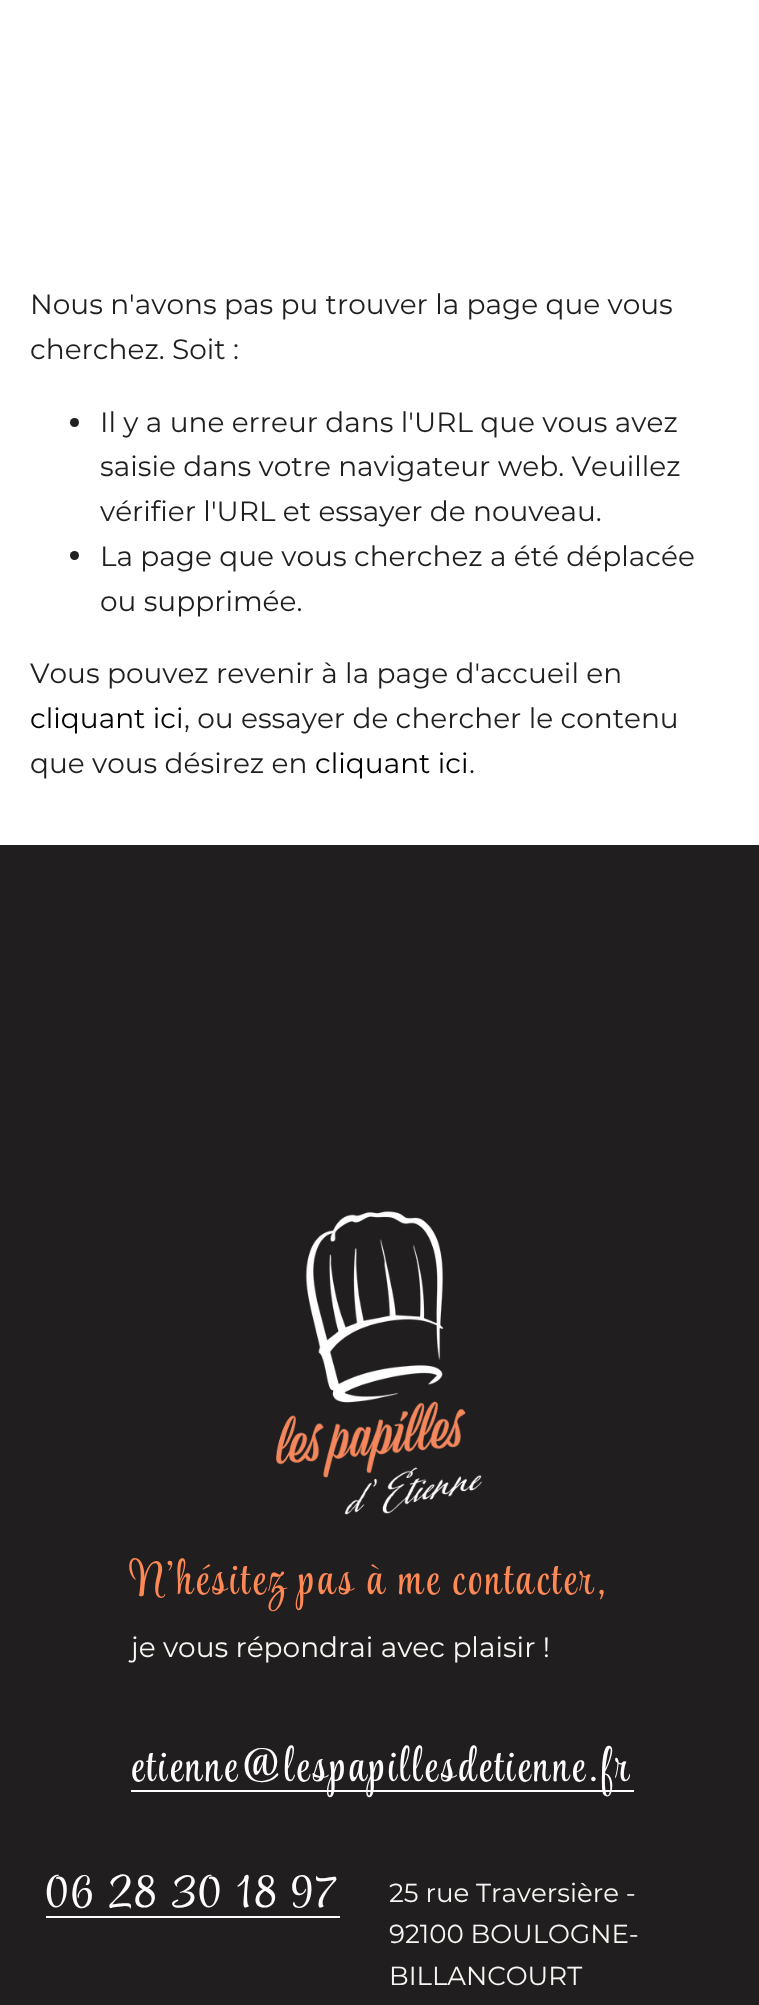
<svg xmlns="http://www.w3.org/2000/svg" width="759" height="2005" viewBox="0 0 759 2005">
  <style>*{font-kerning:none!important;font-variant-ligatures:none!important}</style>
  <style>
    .t1 { font: 28px Montserrat; fill: #211e1f; }
    .t2 { font: 28px Montserrat; fill: #000; }
    .t3 { font: 46.9px Style Script; letter-spacing: 3.25px; fill: #ff8955; }
    .t4 { font: 28px Montserrat; fill: #f8f5f2; }
    .t5 { font: 46.9px Style Script; letter-spacing: 3.25px; fill: #fff; }
    .t6 { font: 26.1px Montserrat; fill: #f8f5f2; }
  </style>
  <rect width="100%" height="100%" fill="#fff"/>
  <text x="30" y="314" class="t1">Nous n'avons pas pu trouver la page que vous</text>
  <text x="30" y="359" class="t1">cherchez. Soit :</text>
  <circle cx="74.5" cy="422.5" r="4.5" fill="#211e1f"/>
  <text x="100" y="432" class="t1">Il y a une erreur dans l'URL que vous avez</text>
  <text x="100" y="476" class="t1">saisie dans votre navigateur web. Veuillez</text>
  <text x="100" y="521" class="t1">vérifier l'URL et essayer de nouveau.</text>
  <circle cx="74.5" cy="555.5" r="4.5" fill="#211e1f"/>
  <text x="100" y="566" class="t1">La page que vous cherchez a été déplacée</text>
  <text x="100" y="611" class="t1">ou supprimée.</text>
  <text x="30" y="683" class="t1">Vous pouvez revenir à la page d'accueil en</text>
  <text x="30" y="728" class="t2">cliquant ici</text>
  <text x="184" y="728" class="t1">, ou essayer de chercher le contenu</text>
  <text x="30" y="773" class="t1">que vous désirez en</text>
  <text x="315" y="773" class="t2">cliquant ici</text>
  <text x="469" y="773" class="t1">.</text>
  <rect x="0" y="845" width="759" height="1160" fill="#211e1f"/>
  <image x="276" y="1211" width="206" height="304" href="images/1.png"/>
  <text x="131" y="1594" word-spacing="-1.5" class="t3">N'hésitez pas à me contacter,</text>
  <text x="131" y="1657" class="t4">je vous répondrai avec plaisir !</text>
  <rect x="131" y="1790" width="503" height="2" fill="#fff"/>
  <text x="131" y="1781" class="t5">etienne@lespapillesdetienne.fr</text>
  <text x="46" y="1907" class="t5">06 28 30 18 97</text>
  <rect x="46" y="1916" width="294" height="2" fill="#fff"/>
  <text x="389" y="1902" class="t6">25 rue Traversière -</text>
  <text x="389" y="1943" class="t6">92100 BOULOGNE-</text>
  <text x="389" y="1985" class="t6">BILLANCOURT</text>
</svg>
